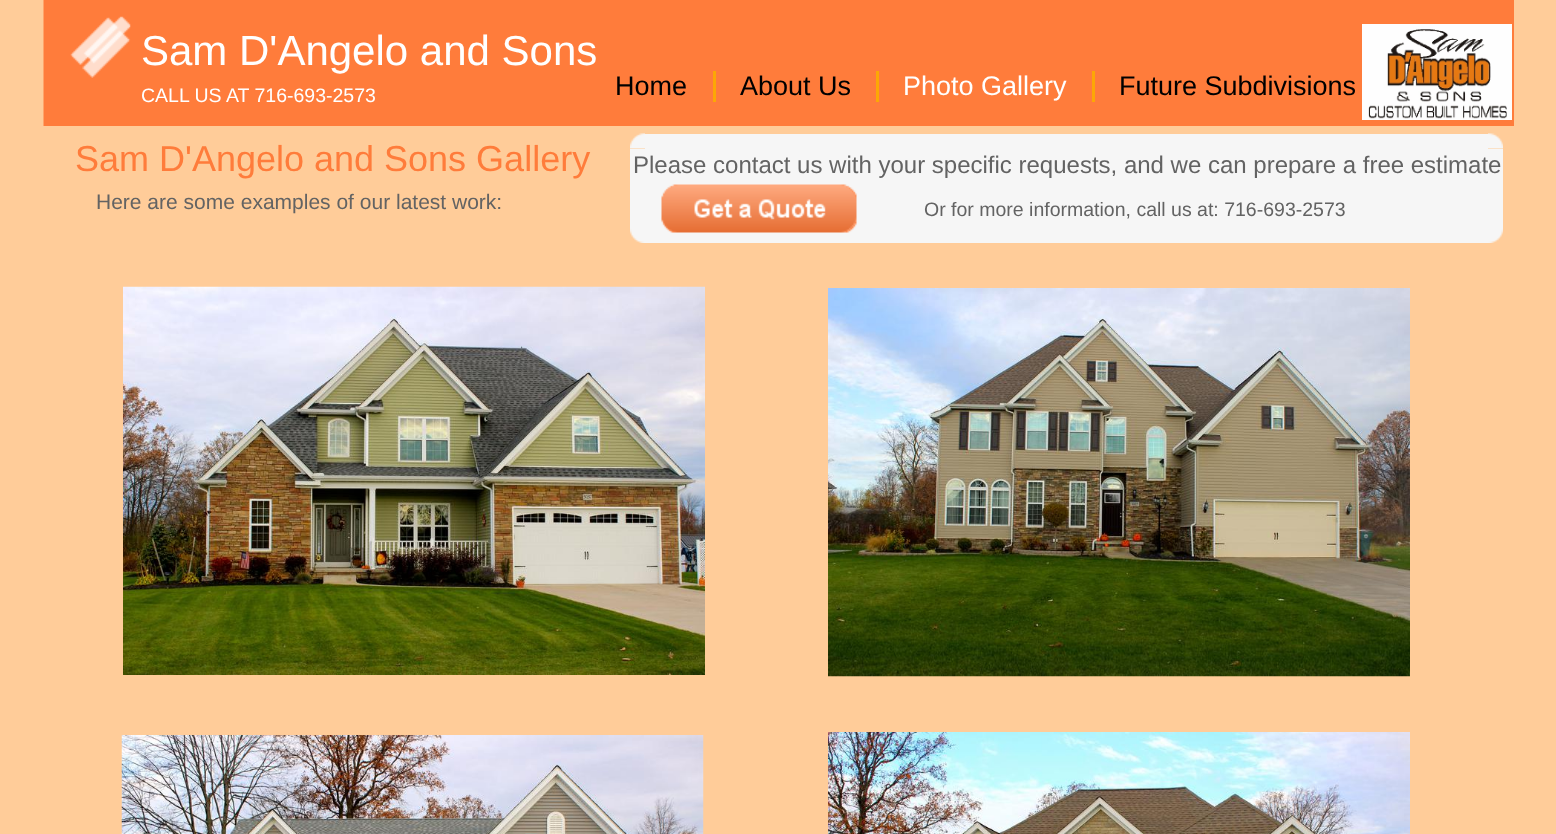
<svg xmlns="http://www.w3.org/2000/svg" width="1556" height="834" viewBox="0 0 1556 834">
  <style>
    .t1 { font: 42px Liberation Sans; fill: #fff; }
    .t2 { font: 19.5px Liberation Sans; fill: #fff; }
    .t3 { font: 27px Liberation Sans; fill: #000; }
    .t4 { font: 27px Liberation Sans; fill: #fff; }
    .t5 { font: 36px Liberation Sans; fill: #ff7c3b; }
    .t6 { font: 24px Liberation Sans; fill: #636363; }
    .t7 { font: 21px Liberation Sans; fill: #636363; }
    .t8 { font: 19.5px Liberation Sans; fill: #636363; }
  </style>
  <rect width="100%" height="100%" fill="#fc9"/>
  <rect x="44" y="0" width="1470" height="126" fill="#ff7c3b"/>
  <rect x="43" y="0" width="1" height="126" fill="#ffa46a"/>
  <image x="70" y="16" width="61" height="62" href="images/1.png"/>
  <text x="141" y="65" class="t1">Sam D'Angelo and Sons</text>
  <image x="1362" y="24" width="150" height="96" href="images/2.png"/>
  <text x="141" y="102" class="t2">CALL US AT 716-693-2573</text>
  <text x="615" y="95" class="t3">Home</text>
  <rect x="713" y="71" width="3" height="31" fill="#fca705"/>
  <text x="740" y="95" class="t3">About Us</text>
  <rect x="876" y="71" width="3" height="31" fill="#fca705"/>
  <text x="903" y="95" class="t4">Photo Gallery</text>
  <rect x="1092" y="71" width="3" height="31" fill="#fca705"/>
  <text x="1119" y="95" class="t3">Future Subdivisions</text>
  <text x="75" y="171" class="t5">Sam D'Angelo and Sons Gallery</text>
  <image x="630" y="133" width="15" height="16" href="images/3.png"/>
  <rect x="630" y="149" width="873" height="79" fill="#f6f6f6"/>
  <rect x="645" y="134" width="843" height="109" fill="#f6f6f6"/>
  <image x="1488" y="133" width="15" height="16" href="images/4.png"/>
  <image x="630" y="228" width="15" height="15" href="images/5.png"/>
  <image x="1488" y="228" width="15" height="15" href="images/6.png"/>
  <text x="633" y="173" class="t6">Please contact us with your specific requests, and we can prepare a free estimate</text>
  <text x="96" y="209" class="t7">Here are some examples of our latest work:</text>
  <image x="661" y="184" width="196" height="49" href="images/7.png"/>
  <text x="924" y="216" class="t8">Or for more information, call us at: 716-693-2573</text>
  <image x="123" y="286" width="582" height="389" href="images/8.png"/>
  <image x="828" y="288" width="582" height="389" href="images/9.png"/>
  <image x="121" y="735" width="583" height="99" href="images/10.png"/>
  <image x="828" y="732" width="582" height="102" href="images/11.png"/>
</svg>
